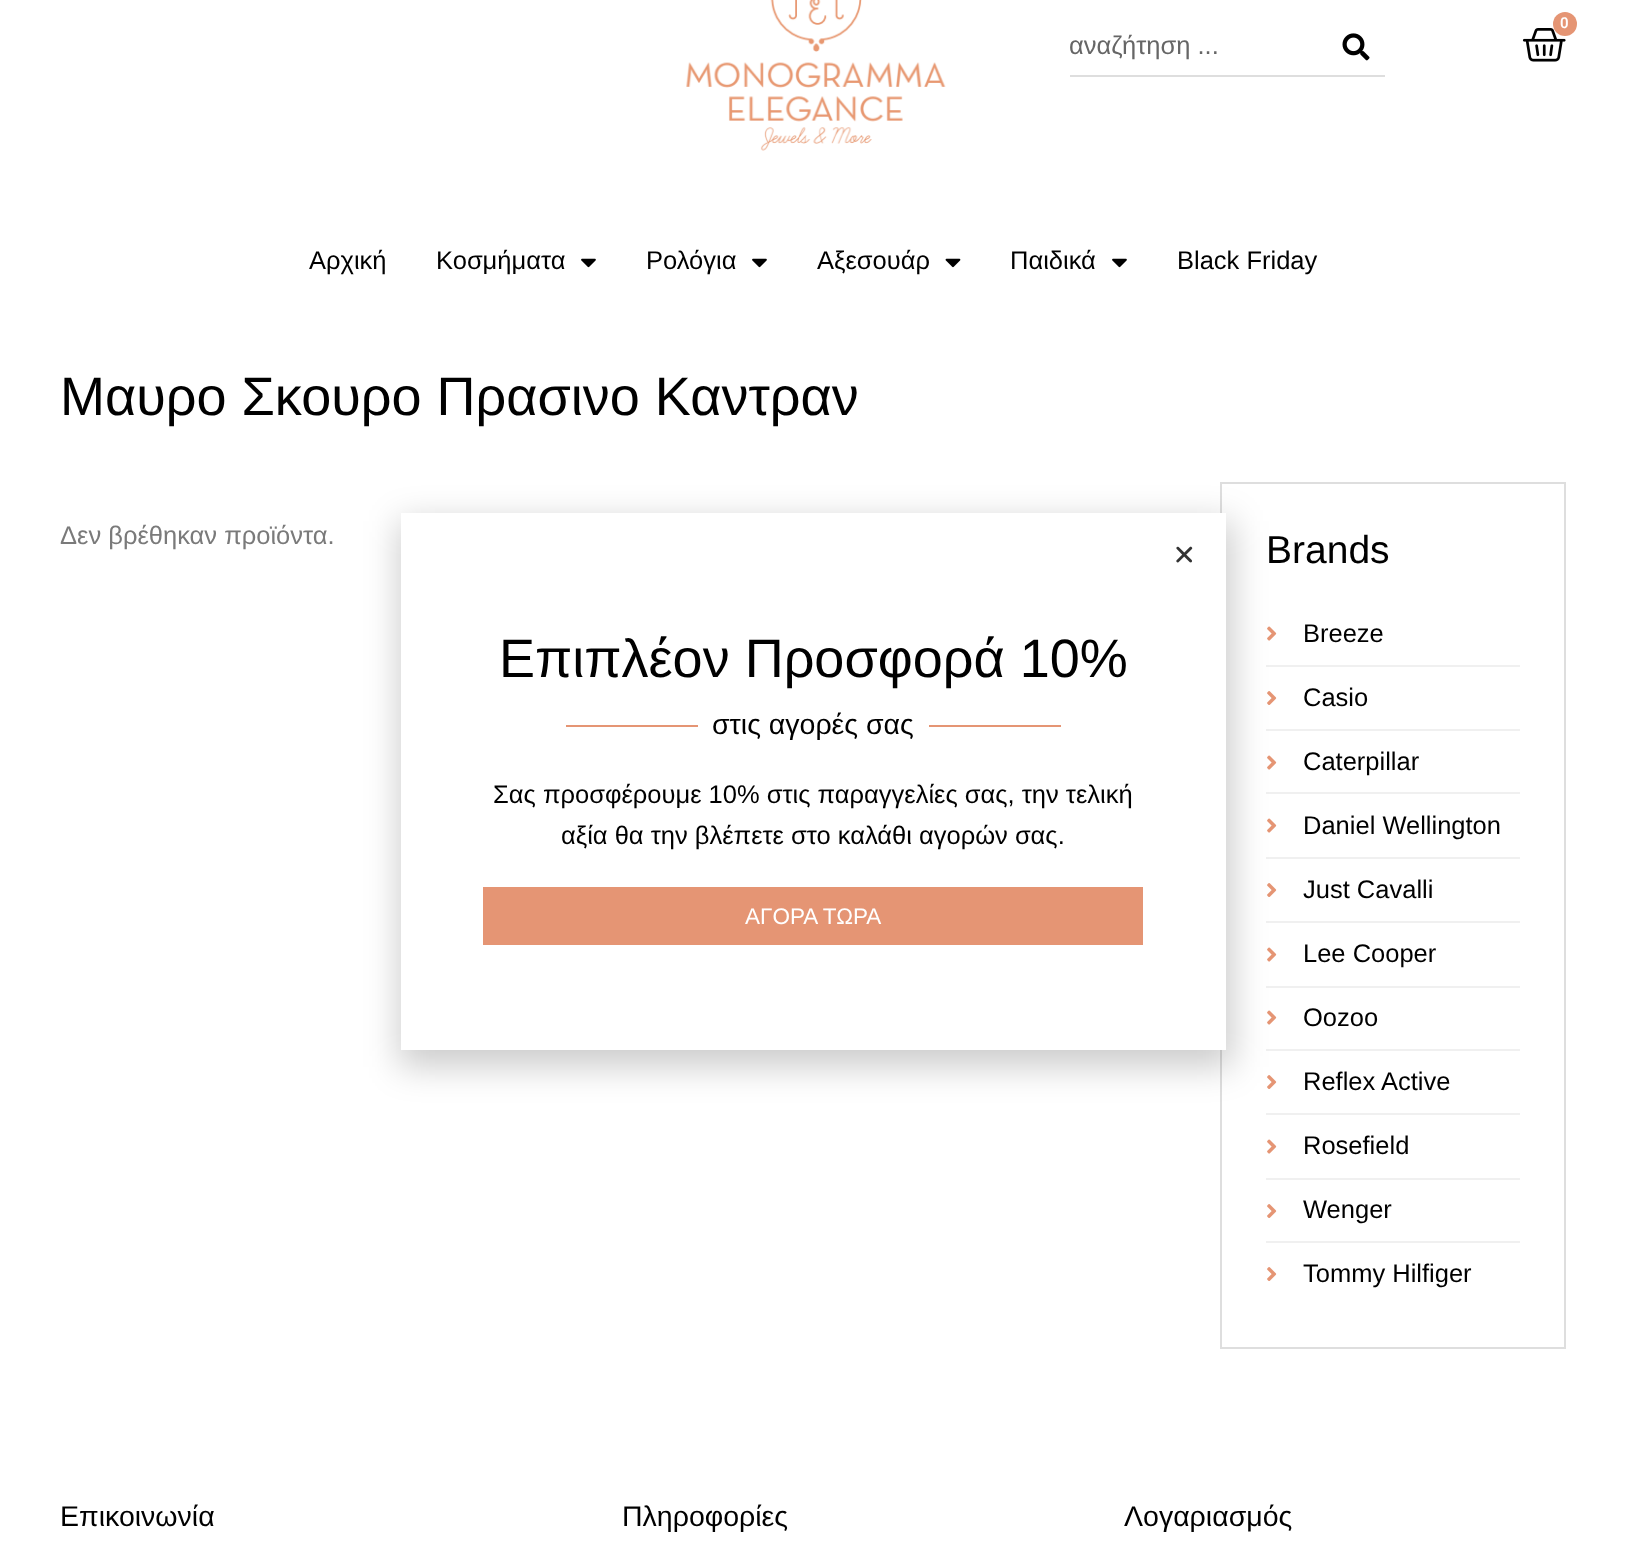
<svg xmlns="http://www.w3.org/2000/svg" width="1626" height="1562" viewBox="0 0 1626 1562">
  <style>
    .t1 { font: 600 15px Roboto; fill: #fff; }
    .t2 { font: 25.5px Liberation Sans; fill: #666; }
    .t3 { font: 25.5px Liberation Sans; fill: #000; }
    .t4 { font: 54px Liberation Sans; fill: #000; }
    .t5 { font: 25.5px Liberation Sans; fill: #7a7a7a; }
    .t6 { font: 39px Liberation Sans; fill: #000; }
    .t7 { font: 28.5px Liberation Sans; fill: #000; }
    .t8 { font: 22.5px Liberation Sans; fill: #fff; }
  </style>
  <rect width="100%" height="100%" fill="#fff"/>
  <image x="686" y="0" width="260" height="151" href="images/1.png"/>
  <image x="1522" y="28" width="44" height="34" href="images/2.png"/>
  <circle cx="1565" cy="24" r="12" fill="#e59574"/>
  <text x="1560" y="28" class="t1">0</text>
  <rect x="1070" y="75" width="315" height="2" fill="#dedede"/>
  <text x="1069" y="54" class="t2">αναζήτηση ...</text>
  <image x="1342" y="33" width="28" height="28" href="images/3.png"/>
  <text x="309" y="269" class="t3">Αρχική</text>
  <text x="436" y="269" class="t3">Κοσμήματα</text>
  <image x="581" y="258" width="15" height="10" href="images/4.png"/>
  <text x="646" y="269" class="t3">Ρολόγια</text>
  <image x="752" y="258" width="15" height="10" href="images/4.png"/>
  <text x="817" y="269" class="t3">Αξεσουάρ</text>
  <image x="945" y="258" width="16" height="10" href="images/5.png"/>
  <text x="1010" y="269" class="t3">Παιδικά</text>
  <image x="1112" y="258" width="15" height="10" href="images/4.png"/>
  <text x="1177" y="269" class="t3">Black Friday</text>
  <text x="60" y="415" class="t4">Μαυρο Σκουρο Πρασινο Καντραν</text>
  <text x="60" y="544" class="t5">Δεν βρέθηκαν προϊόντα.</text>
  <rect x="1221" y="483" width="344" height="865" fill="none" stroke="#dedede" stroke-width="2"/>
  <text x="1266" y="563" class="t6">Brands</text>
  <image x="1267" y="626" width="10" height="15" href="images/6.png"/>
  <text x="1303" y="642" class="t3">Breeze</text>
  <rect x="1266" y="665" width="254" height="2" fill="#f0f0f0"/>
  <image x="1267" y="691" width="10" height="14" href="images/7.png"/>
  <text x="1303" y="706" class="t3">Casio</text>
  <rect x="1266" y="729" width="254" height="2" fill="#f0f0f0"/>
  <image x="1267" y="755" width="10" height="15" href="images/6.png"/>
  <text x="1303" y="770" class="t3">Caterpillar</text>
  <rect x="1266" y="792" width="254" height="2" fill="#f0f0f0"/>
  <image x="1267" y="818" width="10" height="15" href="images/6.png"/>
  <text x="1303" y="834" class="t3">Daniel Wellington</text>
  <rect x="1266" y="857" width="254" height="2" fill="#f0f0f0"/>
  <image x="1267" y="883" width="10" height="14" href="images/7.png"/>
  <text x="1303" y="898" class="t3">Just Cavalli</text>
  <rect x="1266" y="921" width="254" height="2" fill="#f0f0f0"/>
  <image x="1267" y="947" width="10" height="15" href="images/6.png"/>
  <text x="1303" y="962" class="t3">Lee Cooper</text>
  <rect x="1266" y="986" width="254" height="2" fill="#f0f0f0"/>
  <image x="1267" y="1010" width="10" height="15" href="images/6.png"/>
  <text x="1303" y="1026" class="t3">Oozoo</text>
  <rect x="1266" y="1049" width="254" height="2" fill="#f0f0f0"/>
  <image x="1267" y="1075" width="10" height="14" href="images/7.png"/>
  <text x="1303" y="1090" class="t3">Reflex Active</text>
  <rect x="1266" y="1113" width="254" height="2" fill="#f0f0f0"/>
  <image x="1267" y="1139" width="10" height="15" href="images/6.png"/>
  <text x="1303" y="1154" class="t3">Rosefield</text>
  <rect x="1266" y="1178" width="254" height="2" fill="#f0f0f0"/>
  <image x="1267" y="1204" width="10" height="14" href="images/7.png"/>
  <text x="1303" y="1218" class="t3">Wenger</text>
  <rect x="1266" y="1241" width="254" height="2" fill="#f0f0f0"/>
  <image x="1267" y="1267" width="10" height="14" href="images/7.png"/>
  <text x="1303" y="1282" class="t3">Tommy Hilfiger</text>
  <rect x="399" y="521" width="834" height="546" fill="#00000033" filter="blur(17px)"/>
  <rect x="401" y="513" width="825" height="537" fill="#fff"/>
  <image x="1176" y="546" width="17" height="17" href="images/8.png"/>
  <text x="499" y="677" class="t4">Επιπλέον Προσφορά 10%</text>
  <rect x="566" y="725" width="132" height="2" fill="#e59574"/>
  <text x="712" y="734" class="t7">στις αγορές σας</text>
  <rect x="929" y="725" width="132" height="2" fill="#e59574"/>
  <text x="493" y="803" class="t3">Σας προσφέρουμε 10% στις παραγγελίες σας, την τελική</text>
  <text x="561" y="844" class="t3">αξία θα την βλέπετε στο καλάθι αγορών σας.</text>
  <rect x="483" y="887" width="660" height="58" fill="#e59574"/>
  <text x="745" y="924" class="t8">ΑΓΟΡΑ ΤΩΡΑ</text>
  <text x="60" y="1526" class="t7">Επικοινωνία</text>
  <text x="622" y="1526" class="t7">Πληροφορίες</text>
  <text x="1124" y="1526" class="t7">Λογαριασμός</text>
</svg>
